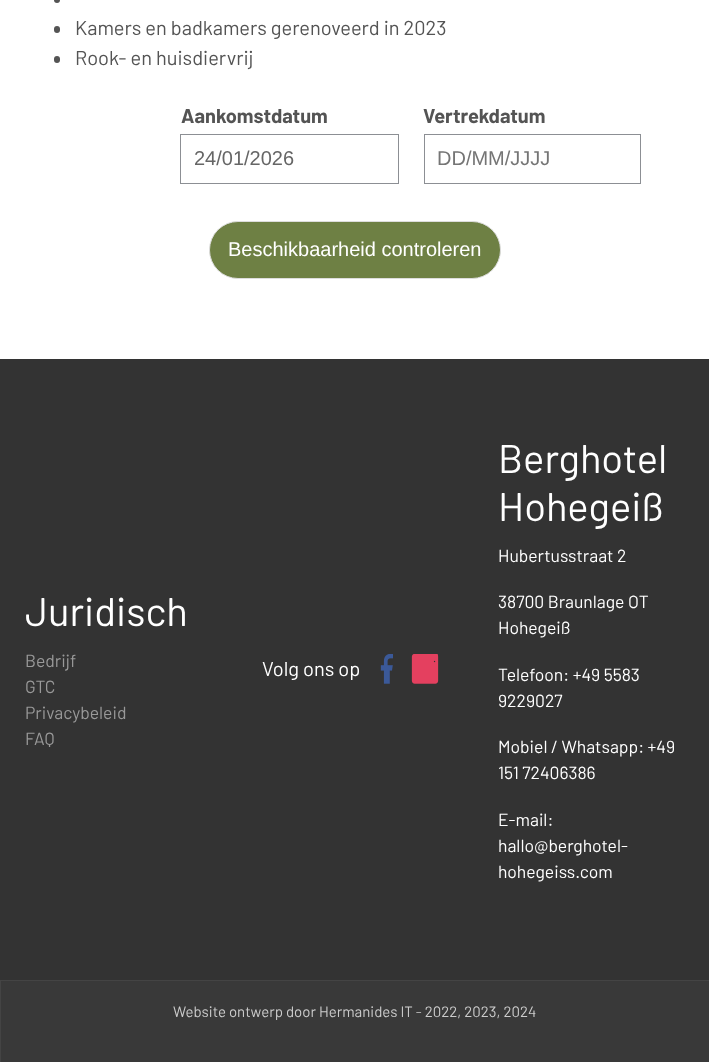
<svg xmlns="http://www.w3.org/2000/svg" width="709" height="1062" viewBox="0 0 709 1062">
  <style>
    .t1 { font: 20px Barlow; fill: #545454; }
    .t2 { font: bold 20px Barlow; fill: #545454; }
    .t3 { font: 20px Liberation Sans; fill: #666; }
    .t4 { font: 20px Liberation Sans; fill: #757575; }
    .t5 { font: 20px Liberation Sans; fill: #fff; }
    .t6 { font: 40px Barlow; fill: #fff; }
    .t7 { font: 17.5px Barlow; fill: #999; }
    .t8 { font: 20px Barlow; fill: #fff; }
    .t9 { font: 17.5px Barlow; fill: #fff; }
    .t10 { font: 15px Barlow; fill: #ccc; }
  </style>
  <rect width="100%" height="100%" fill="#fff"/>
  <circle cx="57" cy="0" r="3" fill="#545454"/>
  <rect x="54" y="26" width="6" height="7" rx="3" fill="#545454"/>
  <text x="75" y="35" class="t1">Kamers en badkamers gerenoveerd in 2023</text>
  <rect x="54" y="56" width="6" height="7" rx="3" fill="#545454"/>
  <text x="75" y="65" class="t1">Rook- en huisdiervrij</text>
  <text x="181" y="123" class="t2">Aankomstdatum</text>
  <rect x="180.5" y="134.5" width="218" height="49" fill="none" stroke="#8c8f94"/>
  <text x="194" y="165" class="t3">24/01/2026</text>
  <text x="423" y="123" class="t2">Vertrekdatum</text>
  <rect x="424.5" y="134.5" width="216" height="49" fill="none" stroke="#8c8f94"/>
  <text x="437" y="165" class="t4">DD/MM/JJJJ</text>
  <rect x="209.5" y="221.5" width="291" height="57" rx="28.5" fill="#6e8044" stroke="#ddd"/>
  <text x="228" y="256" class="t5">Beschikbaarheid controleren</text>
  <rect x="0" y="359" width="709" height="621" fill="#333"/>
  <text x="25" y="626" class="t6">Juridisch</text>
  <text x="25" y="667" class="t7">Bedrijf</text>
  <text x="25" y="693" class="t7">GTC</text>
  <text x="25" y="719" class="t7">Privacybeleid</text>
  <text x="25" y="745" class="t7">FAQ</text>
  <text x="262" y="676" class="t8">Volg ons op</text>
  <image x="380" y="654" width="13" height="30" href="images/1.png"/>
  <image x="411" y="654" width="28" height="30" href="images/2.png"/>
  <text x="498" y="473" class="t6">Berghotel</text>
  <text x="498" y="521" class="t6">Hohegeiß</text>
  <text x="498" y="562" class="t9">Hubertusstraat 2</text>
  <text x="498" y="608" class="t9">38700 Braunlage OT</text>
  <text x="498" y="634" class="t9">Hohegeiß</text>
  <text x="498" y="681" class="t9">Telefoon: +49 5583</text>
  <text x="498" y="707" class="t9">9229027</text>
  <text x="498" y="753" class="t9">Mobiel / Whatsapp: +49</text>
  <text x="498" y="779" class="t9">151 72406386</text>
  <text x="498" y="826" class="t9">E-mail:</text>
  <text x="498" y="852" class="t9">hallo@berghotel-</text>
  <text x="498" y="878" class="t9">hohegeiss.com</text>
  <rect x="0.5" y="980.5" width="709" height="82" fill="#393939" stroke="#444"/>
  <text x="173" y="1017" class="t10">Website ontwerp door Hermanides IT - 2022, 2023, 2024</text>
</svg>
